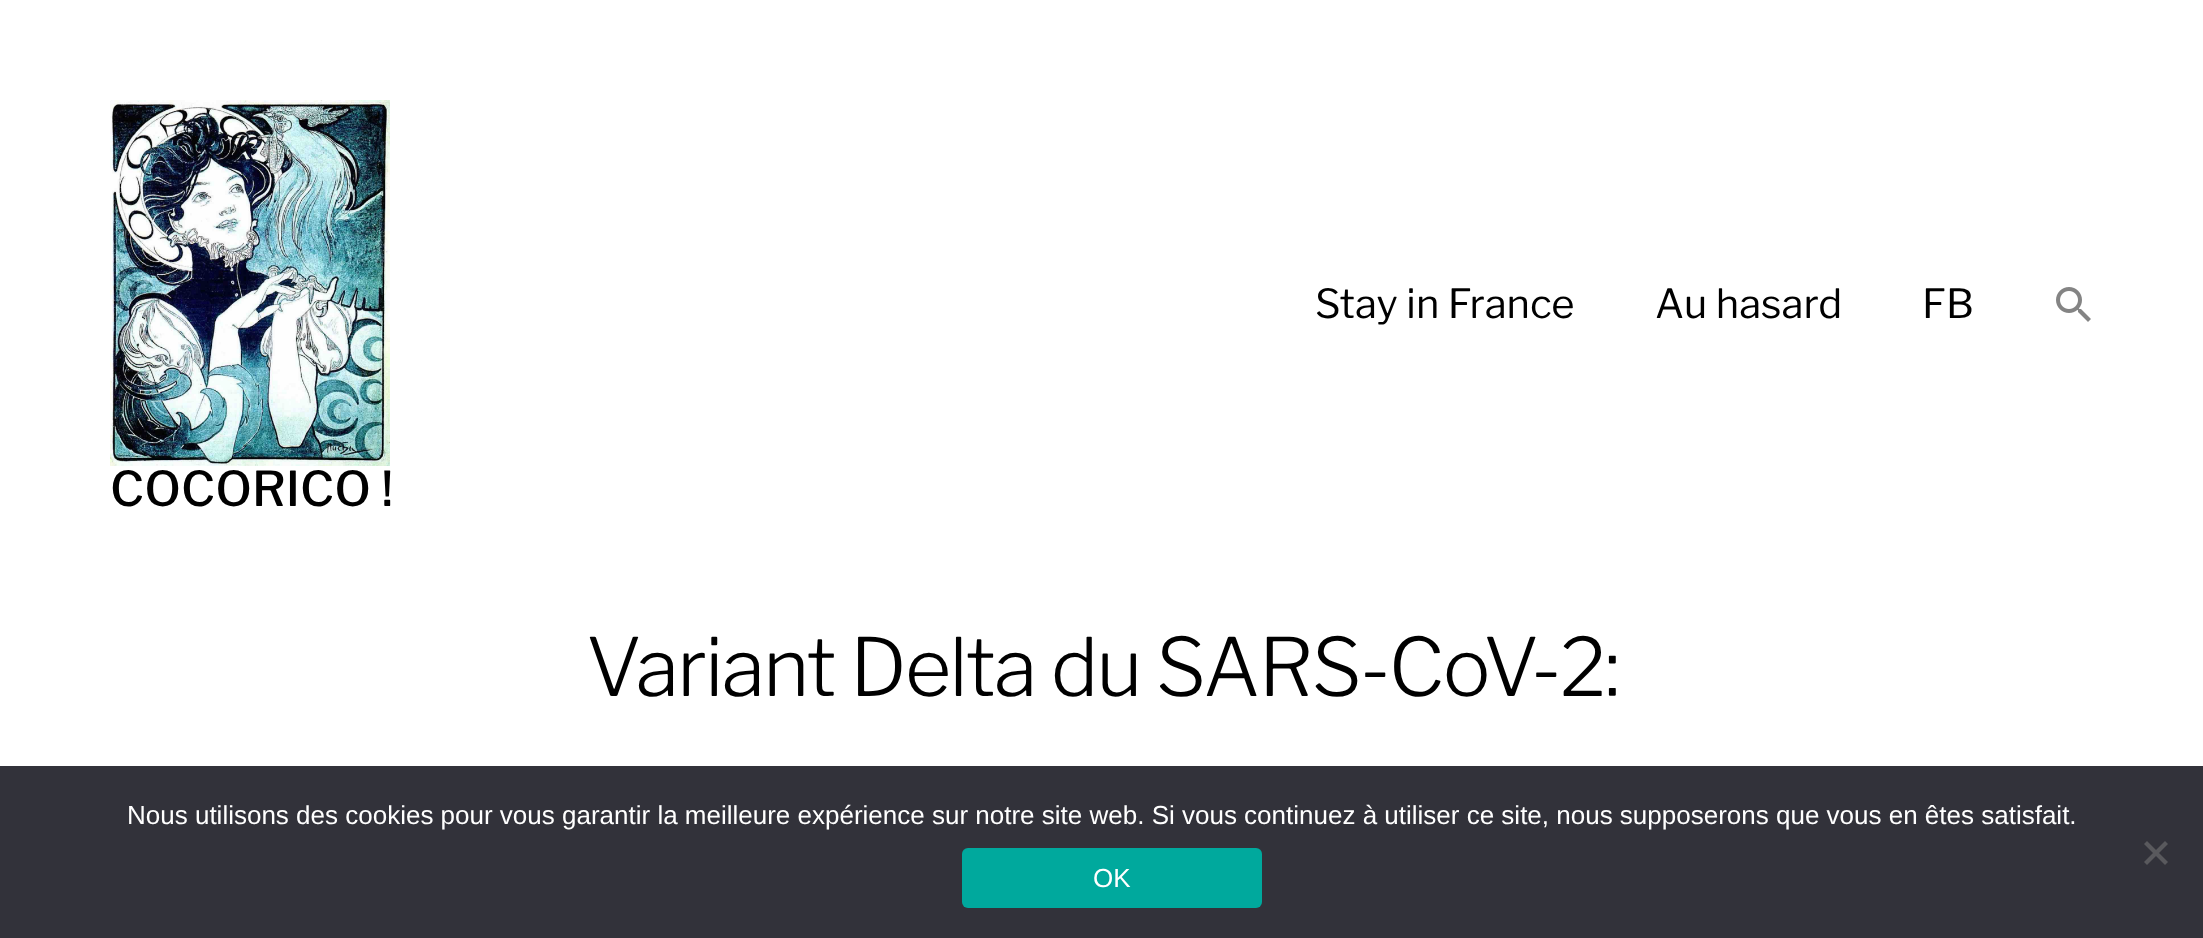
<svg xmlns="http://www.w3.org/2000/svg" width="2203" height="938" viewBox="0 0 2203 938">
  <style>
    .t1 { font: 40px Libre Franklin; fill: #000; }
    .t2 { font: 500 48px Libre Franklin; fill: #000; }
    .t3 { font: 300 80px Libre Franklin; letter-spacing: -2px; fill: #000; }
    .t4 { font: 26px Liberation Sans; fill: #fff; }
  </style>
  <rect width="100%" height="100%" fill="#fff"/>
  <text x="1315" y="318" class="t1">Stay in France</text>
  <text x="1655" y="318" class="t1">Au hasard</text>
  <text x="1922" y="318" class="t1">FB</text>
  <image x="2056" y="287" width="35" height="35" href="images/1.png"/>
  <image x="110" y="100" width="280" height="366" href="images/2.png"/>
  <text x="110" y="506" class="t2">COCORICO !</text>
  <text x="586" y="696" class="t3">Variant Delta du SARS-CoV-2:</text>
  <rect x="0" y="766" width="2203" height="172" fill="#32323a"/>
  <text x="127" y="824" class="t4">Nous utilisons des cookies pour vous garantir la meilleure expérience sur notre site web. Si vous continuez à utiliser ce site, nous supposerons que vous en êtes satisfait.</text>
  <path d="M2165 841L2168 844L2147 865L2144 862Z" fill="#59595d"/>
  <path d="M2144 844L2147 841L2168 862L2165 865Z" fill="#59595d"/>
  <rect x="962" y="848" width="300" height="60" rx="6" fill="#00a99d"/>
  <text x="1093" y="887" class="t4">OK</text>
</svg>
